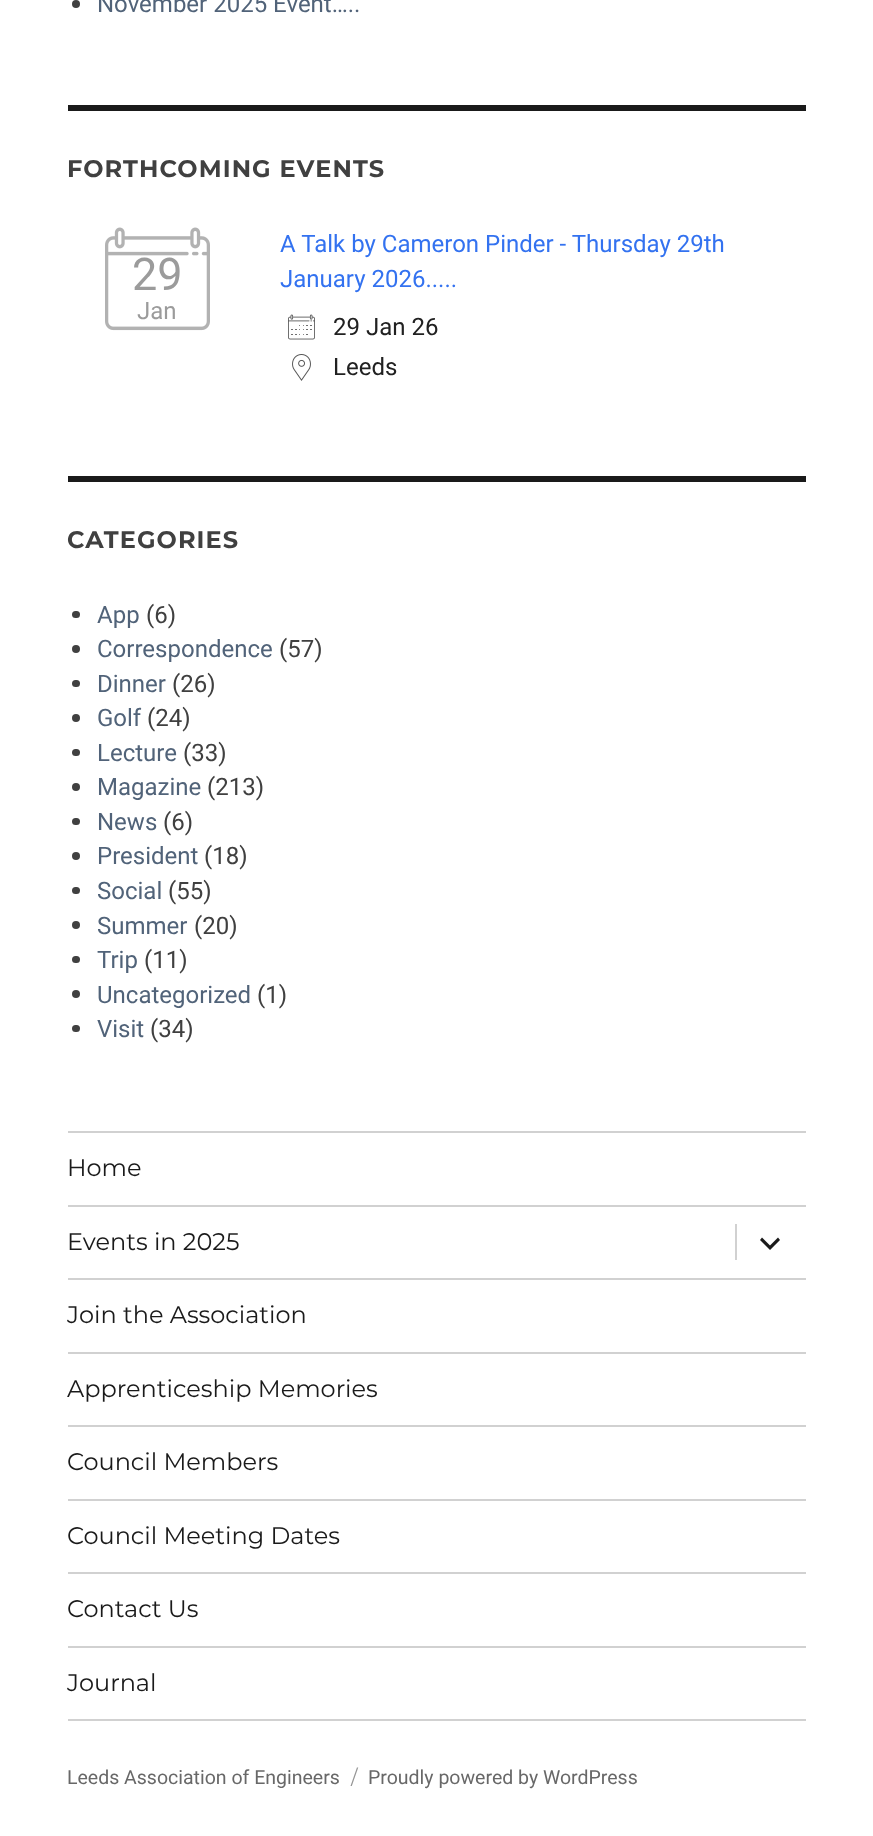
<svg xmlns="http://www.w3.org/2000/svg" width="873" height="1836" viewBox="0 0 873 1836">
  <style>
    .t1 { font: 24px Roboto; fill: #516379; }
    .t2 { font: bold 24px Montserrat; letter-spacing: 1.1px; fill: #404040; }
    .t3 { font: 45px Roboto; fill: #9b9b9b; }
    .t4 { font: 24px Roboto; fill: #9b9b9b; }
    .t5 { font: 24px Roboto; fill: #3372f0; }
    .t6 { font: 24px Roboto; fill: #212121; }
    .t7 { font: 24px Roboto; fill: #404040; }
    .t8 { font: 24px Montserrat; fill: #1a1a1a; }
    .t9 { font: 19.5px Roboto; fill: #686868; }
    .t10 { font: 19.5px Montserrat; fill: #959595; }
  </style>
  <rect width="100%" height="100%" fill="#fff"/>
  <circle cx="76" cy="4" r="4" fill="#404040"/>
  <text x="97" y="12" class="t1">November 2025 Event…..</text>
  <rect x="68" y="105" width="738" height="6" fill="#1a1a1a"/>
  <text x="67" y="177" class="t2">FORTHCOMING EVENTS</text>
  <image x="105" y="227" width="105" height="104" href="images/1.png"/>
  <text x="132" y="290" class="t3">29</text>
  <text x="137" y="319" class="t4">Jan</text>
  <text x="280" y="252" class="t5">A Talk by Cameron Pinder - Thursday 29th</text>
  <text x="280" y="287" class="t5">January 2026.....</text>
  <image x="288" y="314" width="27" height="26" href="images/2.png"/>
  <text x="333" y="335" class="t6">29 Jan 26</text>
  <image x="292" y="354" width="19" height="27" href="images/3.png"/>
  <text x="333" y="375" class="t6">Leeds</text>
  <rect x="68" y="476" width="738" height="6" fill="#1a1a1a"/>
  <text x="67" y="548" class="t2">CATEGORIES</text>
  <rect x="72" y="611" width="8" height="7" rx="3.5" fill="#404040"/>
  <text x="97" y="623" class="t1">App</text>
  <text x="146" y="623" class="t7">(6)</text>
  <circle cx="76" cy="649" r="4" fill="#404040"/>
  <text x="97" y="657" class="t1">Correspondence</text>
  <text x="279" y="657" class="t7">(57)</text>
  <rect x="72" y="680" width="8" height="7" rx="3.5" fill="#404040"/>
  <text x="97" y="692" class="t1">Dinner</text>
  <text x="172" y="692" class="t7">(26)</text>
  <circle cx="76" cy="718" r="4" fill="#404040"/>
  <text x="97" y="726" class="t1">Golf</text>
  <text x="147" y="726" class="t7">(24)</text>
  <rect x="72" y="749" width="8" height="7" rx="3.5" fill="#404040"/>
  <text x="97" y="761" class="t1">Lecture</text>
  <text x="183" y="761" class="t7">(33)</text>
  <circle cx="76" cy="787" r="4" fill="#404040"/>
  <text x="97" y="795" class="t1">Magazine</text>
  <text x="207" y="795" class="t7">(213)</text>
  <rect x="72" y="818" width="8" height="7" rx="3.5" fill="#404040"/>
  <text x="97" y="830" class="t1">News</text>
  <text x="163" y="830" class="t7">(6)</text>
  <circle cx="76" cy="856" r="4" fill="#404040"/>
  <text x="97" y="864" class="t1">President</text>
  <text x="204" y="864" class="t7">(18)</text>
  <rect x="72" y="887" width="8" height="7" rx="3.5" fill="#404040"/>
  <text x="97" y="899" class="t1">Social</text>
  <text x="168" y="899" class="t7">(55)</text>
  <circle cx="76" cy="925" r="4" fill="#404040"/>
  <text x="97" y="934" class="t1">Summer</text>
  <text x="194" y="934" class="t7">(20)</text>
  <rect x="72" y="956" width="8" height="7" rx="3.5" fill="#404040"/>
  <text x="97" y="968" class="t1">Trip</text>
  <text x="144" y="968" class="t7">(11)</text>
  <circle cx="76" cy="994" r="4" fill="#404040"/>
  <text x="97" y="1003" class="t1">Uncategorized</text>
  <text x="257" y="1003" class="t7">(1)</text>
  <rect x="72" y="1025" width="8" height="7" rx="3.5" fill="#404040"/>
  <text x="97" y="1037" class="t1">Visit</text>
  <text x="150" y="1037" class="t7">(34)</text>
  <rect x="68" y="1719" width="738" height="2" fill="#d1d1d1"/>
  <rect x="68" y="1131" width="738" height="2" fill="#d1d1d1"/>
  <text x="67" y="1176" class="t8">Home</text>
  <rect x="68" y="1205" width="738" height="2" fill="#d1d1d1"/>
  <text x="67" y="1250" class="t8">Events in 2025</text>
  <rect x="735" y="1224" width="2" height="36" fill="#d1d1d1"/>
  <path d="M778 1237.5L780 1240L770 1250L760 1240L762 1237.5L770 1245.5Z" fill="#1a1a1a"/>
  <rect x="68" y="1278" width="738" height="2" fill="#d1d1d1"/>
  <text x="67" y="1323" class="t8">Join the Association</text>
  <rect x="68" y="1352" width="738" height="2" fill="#d1d1d1"/>
  <text x="67" y="1397" class="t8">Apprenticeship Memories</text>
  <rect x="68" y="1425" width="738" height="2" fill="#d1d1d1"/>
  <text x="67" y="1470" class="t8">Council Members</text>
  <rect x="68" y="1499" width="738" height="2" fill="#d1d1d1"/>
  <text x="67" y="1544" class="t8">Council Meeting Dates</text>
  <rect x="68" y="1572" width="738" height="2" fill="#d1d1d1"/>
  <text x="67" y="1617" class="t8">Contact Us</text>
  <rect x="68" y="1646" width="738" height="2" fill="#d1d1d1"/>
  <text x="67" y="1691" class="t8">Journal</text>
  <text x="67" y="1784" class="t9">Leeds Association of Engineers</text>
  <text x="351" y="1784" class="t10">/</text>
  <text x="368" y="1784" class="t9">Proudly powered by WordPress</text>
</svg>
